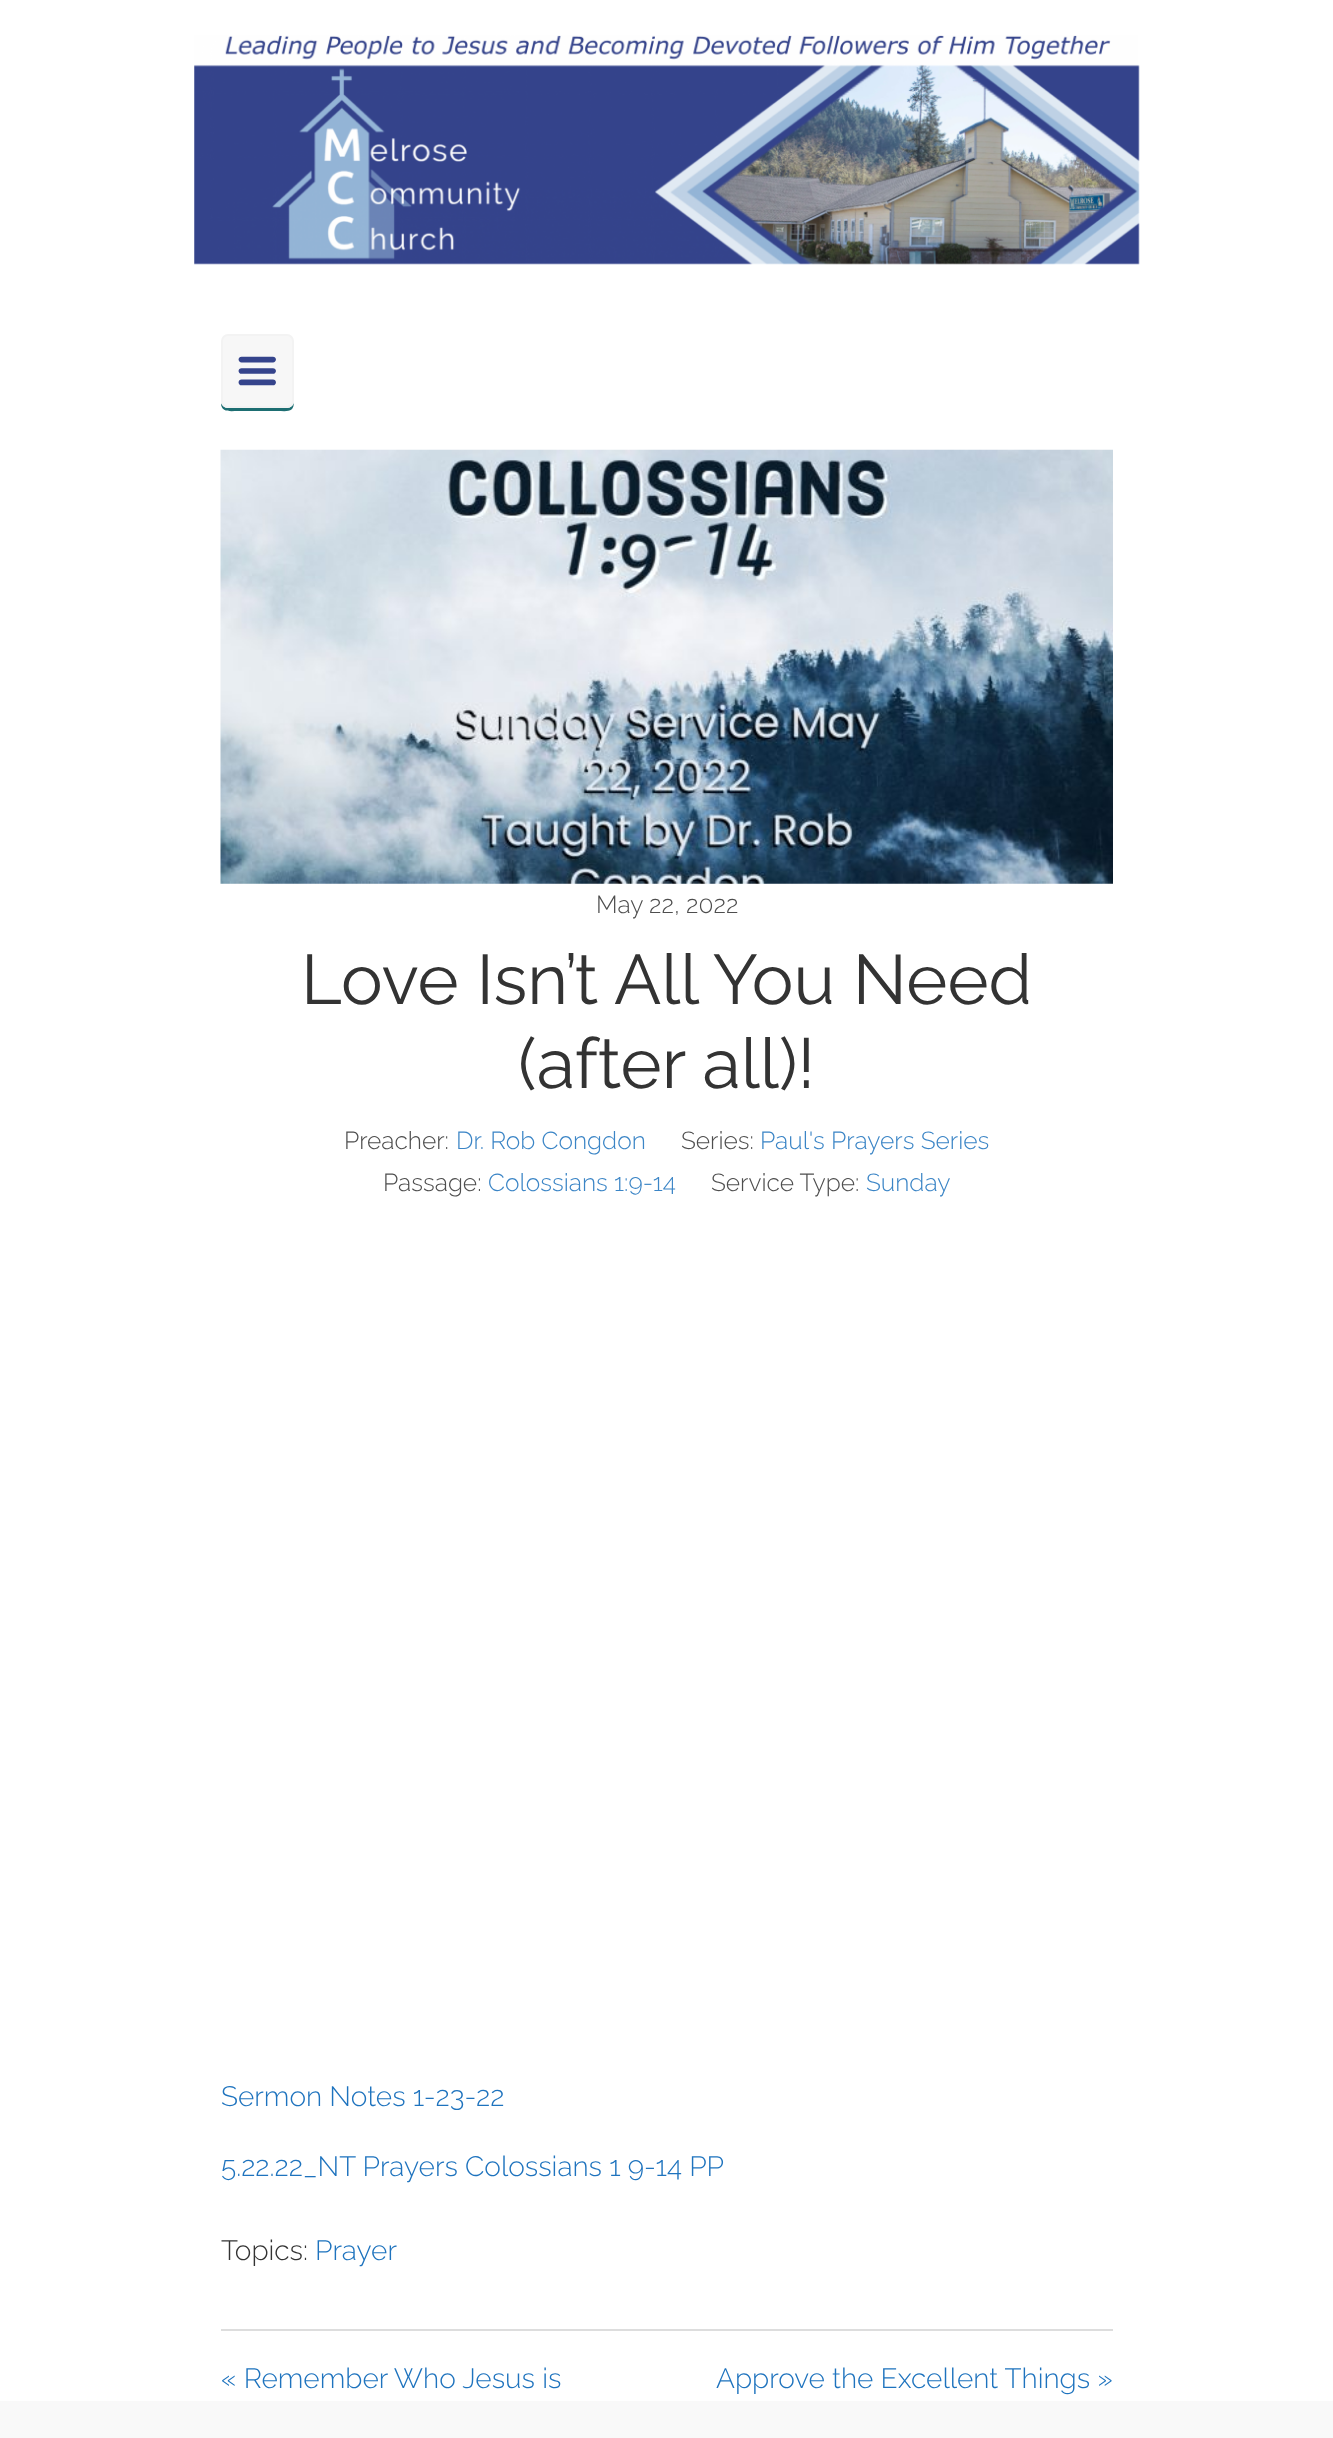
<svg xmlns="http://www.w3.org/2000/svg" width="1333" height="2438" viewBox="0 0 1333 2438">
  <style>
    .t1 { font: 300 24.5px Raleway; fill: #4e4e4e; }
    .t2 { font: 70px Raleway; fill: #333; }
    .t3 { font: 300 24.5px Raleway; fill: #3b85c6; }
    .t4 { font: 300 28px Raleway; fill: #1e73be; }
    .t5 { font: 300 28px Raleway; fill: #333; }
  </style>
  <rect width="100%" height="100%" fill="#f9f9f9"/>
  <rect x="0" y="0" width="1333" height="2401" fill="#fff"/>
  <image x="194" y="35" width="946" height="230" href="images/1.png"/>
  <path d="M221 403C221 413 231 411 238 411H277C288 411 294 413 294 401C294 405 291 408 287 408H228C225 408 222 406 221 403Z" fill="#1d6e72"/>
  <rect x="222" y="335" width="71" height="72" rx="6" fill="#f7f7f7" stroke="#f3f3f3" stroke-width="2"/>
  <image x="238" y="356" width="38" height="30" href="images/2.png"/>
  <image x="220" y="449" width="893" height="435" href="images/3.png"/>
  <text x="596" y="913" class="t1">May 22, 2022</text>
  <text x="301" y="1004" class="t2">Love Isn’t All You Need</text>
  <text x="518" y="1088" class="t2">(after all)!</text>
  <text x="344" y="1149" class="t1">Preacher:</text>
  <text x="456" y="1149" class="t3">Dr. Rob Congdon</text>
  <text x="681" y="1149" class="t1">Series:</text>
  <text x="760" y="1149" class="t3">Paul's Prayers Series</text>
  <text x="383" y="1191" class="t1">Passage:</text>
  <text x="488" y="1191" class="t3">Colossians 1:9-14</text>
  <text x="711" y="1191" class="t1">Service Type:</text>
  <text x="866" y="1191" class="t3">Sunday</text>
  <text x="221" y="2106" class="t4">Sermon Notes 1-23-22</text>
  <text x="221" y="2176" class="t4">5.22.22_NT Prayers Colossians 1 9-14 PP</text>
  <text x="221" y="2260" class="t5">Topics:</text>
  <text x="315" y="2260" class="t4">Prayer</text>
  <rect x="221" y="2329" width="892" height="2" fill="#ddd"/>
  <text x="221" y="2388" class="t4">« Remember Who Jesus is</text>
  <text x="716" y="2388" class="t4">Approve the Excellent Things »</text>
</svg>
